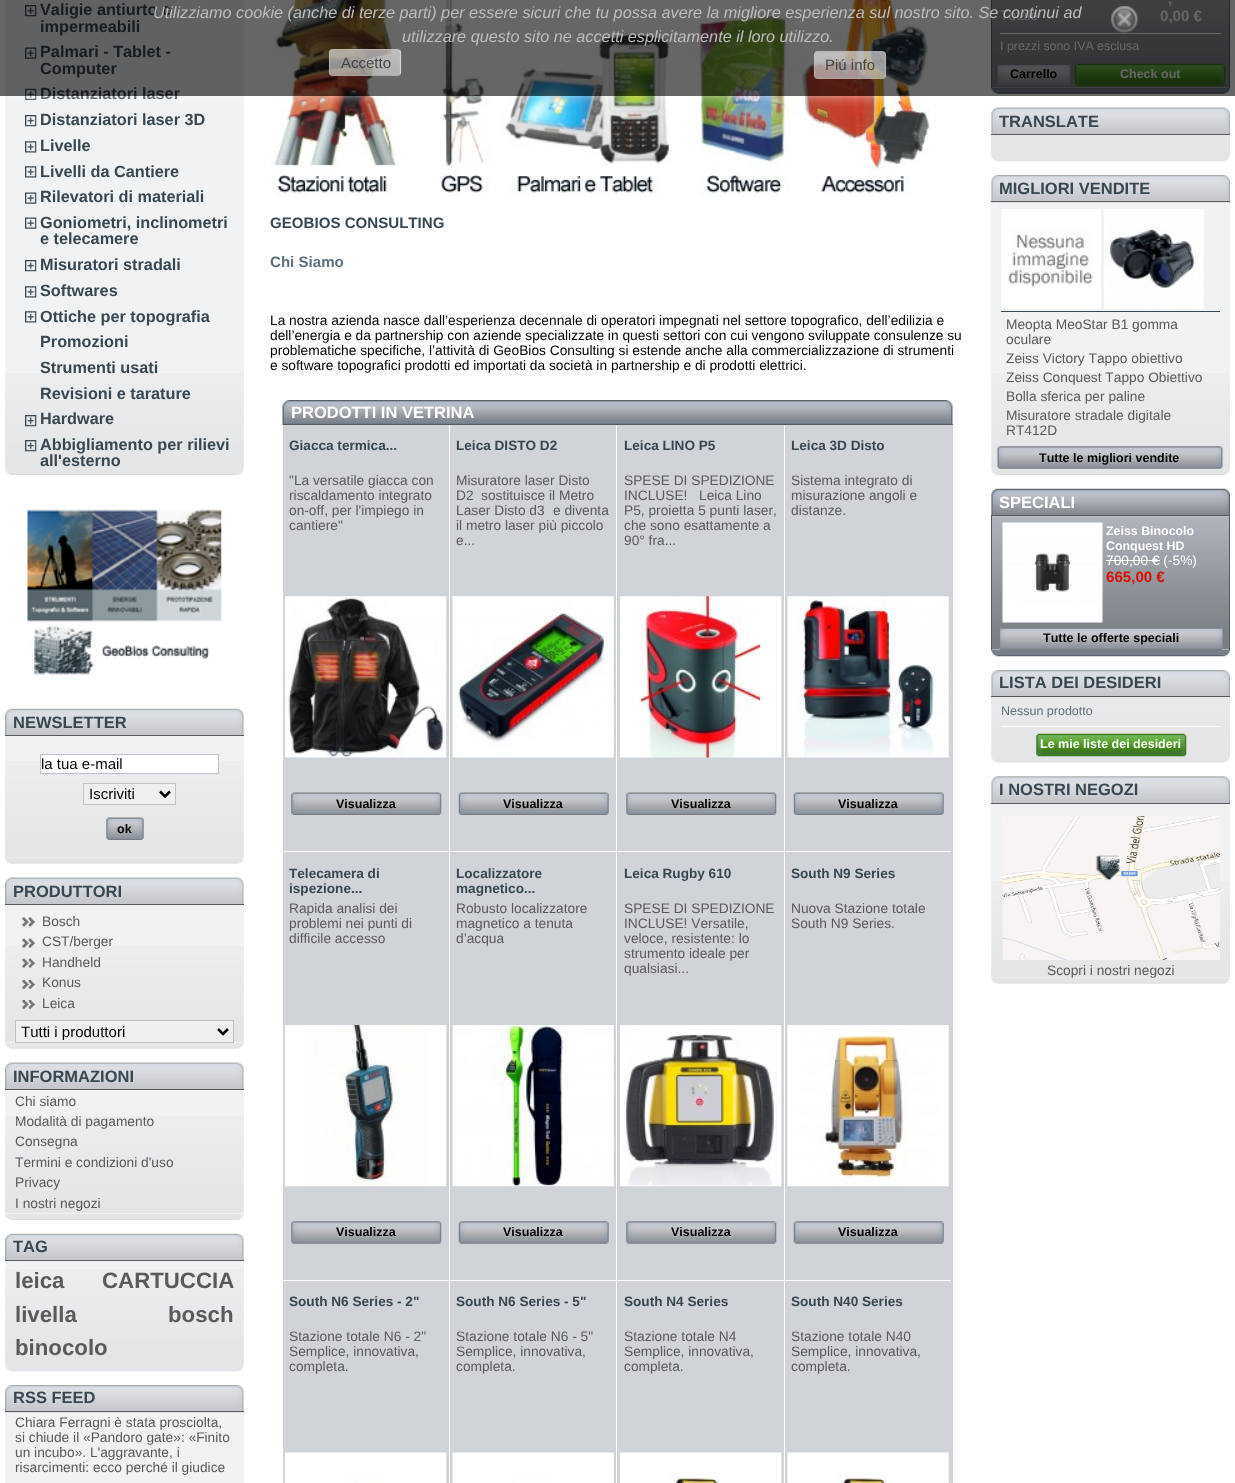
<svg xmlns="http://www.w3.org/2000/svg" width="1235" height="1483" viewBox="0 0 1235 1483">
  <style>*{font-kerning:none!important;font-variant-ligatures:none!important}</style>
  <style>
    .t1 { font: bold 16.25px Liberation Sans; fill: #374853; }
    .t2 { font: bold 16.5px Liberation Sans; fill: #374853; }
    .t3 { font: 15px Liberation Sans; fill: #000; }
    .t4 { font: bold 12.5px Liberation Sans; fill: #000; }
    .t5 { font: 13.75px Liberation Sans; fill: #595a5e; }
    .t6 { font: bold 22.25px Liberation Sans; fill: #595a5e; }
    .t7 { font: bold 15.1px Liberation Sans; fill: #374853; }
    .t8 { font: bold 15.1px Liberation Sans; fill: #5d717e; }
    .t9 { font: 13.75px Liberation Sans; fill: #000; }
    .t10 { font: bold 16.5px Liberation Sans; fill: #fff; }
    .t11 { font: bold 13.6px Liberation Sans; fill: #374853; }
    .t12 { font: bold 15.1px Liberation Sans; fill: #fff; }
    .t13 { font: 13.75px Liberation Sans; fill: #fff; }
    .t14 { font: 12.4px Liberation Sans; fill: #fff; }
    .t15 { font: bold 12.5px Liberation Sans; fill: #fff; }
    .t16 { font: bold 12.4px Liberation Sans; fill: #fff; }
    .t17 { font: bold 15.1px Liberation Sans; fill: #da0f00; }
    .t18 { font: 12.5px Liberation Sans; fill: #5d717e; }
    .t19 { font: italic 16.25px Liberation Sans; fill: #bebdbc; }
    .t20 { font: 15px Liberation Sans; fill: #464341; }
  </style>
  <defs>
    <clipPath id="clip1"><rect x="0" y="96" width="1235" height="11"/></clipPath>
    <clipPath id="clip2"><rect x="329" y="49" width="72" height="27" rx="4"/></clipPath>
    <linearGradient id="g1" gradientUnits="userSpaceOnUse" x1="365" y1="25" x2="365" y2="50"><stop offset="0" stop-color="#f9f9f9" stop-opacity="0.6"/><stop offset="1" stop-color="#e3e3e3" stop-opacity="0.6"/></linearGradient>
    <linearGradient id="g2" gradientUnits="userSpaceOnUse" x1="365" y1="50" x2="365" y2="75"><stop offset="0" stop-color="#f9f9f9" stop-opacity="0.6"/><stop offset="1" stop-color="#e3e3e3" stop-opacity="0.6"/></linearGradient>
    <linearGradient id="g3" gradientUnits="userSpaceOnUse" x1="365" y1="75" x2="365" y2="100"><stop offset="0" stop-color="#f9f9f9" stop-opacity="0.6"/><stop offset="1" stop-color="#e3e3e3" stop-opacity="0.6"/></linearGradient>
    <clipPath id="clip3"><rect x="814" y="51" width="72" height="28" rx="4"/></clipPath>
    <linearGradient id="g4" gradientUnits="userSpaceOnUse" x1="850" y1="53" x2="850" y2="78"><stop offset="0" stop-color="#f9f9f9" stop-opacity="0.6"/><stop offset="1" stop-color="#e3e3e3" stop-opacity="0.6"/></linearGradient>
    <linearGradient id="g5" gradientUnits="userSpaceOnUse" x1="850" y1="28" x2="850" y2="53"><stop offset="0" stop-color="#f9f9f9" stop-opacity="0.6"/><stop offset="1" stop-color="#e3e3e3" stop-opacity="0.6"/></linearGradient>
    <linearGradient id="g6" gradientUnits="userSpaceOnUse" x1="850" y1="78" x2="850" y2="103"><stop offset="0" stop-color="#f9f9f9" stop-opacity="0.6"/><stop offset="1" stop-color="#e3e3e3" stop-opacity="0.6"/></linearGradient>
  </defs>
  <rect width="100%" height="100%" fill="#fff"/>
  <image x="5" y="469" width="239" height="6" href="images/1.png"/>
  <rect x="5" y="0" width="239" height="469" fill="#f1f2f4"/>
  <image x="5" y="373" width="239" height="96" href="images/2.png"/>
  <image x="25" y="5" width="12" height="12" href="images/3.png"/>
  <text x="40" y="15" class="t1">Valigie antiurto e</text>
  <text x="40" y="32" class="t1">impermeabili</text>
  <image x="25" y="47" width="12" height="12" href="images/4.png"/>
  <text x="40" y="57" class="t1">Palmari - Tablet -</text>
  <text x="40" y="74" class="t1">Computer</text>
  <image x="25" y="88" width="12" height="12" href="images/5.png"/>
  <text x="40" y="99" class="t1">Distanziatori laser</text>
  <image x="25" y="115" width="12" height="12" href="images/3.png"/>
  <text x="40" y="125" class="t1">Distanziatori laser 3D</text>
  <image x="25" y="141" width="12" height="12" href="images/6.png"/>
  <text x="40" y="151" class="t1">Livelle</text>
  <image x="25" y="166" width="12" height="12" href="images/6.png"/>
  <text x="40" y="177" class="t1">Livelli da Cantiere</text>
  <image x="25" y="192" width="12" height="12" href="images/4.png"/>
  <text x="40" y="202" class="t1">Rilevatori di materiali</text>
  <image x="25" y="217" width="12" height="12" href="images/4.png"/>
  <text x="40" y="228" class="t1">Goniometri, inclinometri</text>
  <text x="40" y="244" class="t1">e telecamere</text>
  <image x="25" y="260" width="12" height="12" href="images/3.png"/>
  <text x="40" y="270" class="t1">Misuratori stradali</text>
  <image x="25" y="286" width="12" height="12" href="images/6.png"/>
  <text x="40" y="296" class="t1">Softwares</text>
  <image x="25" y="311" width="12" height="12" href="images/6.png"/>
  <text x="40" y="322" class="t1">Ottiche per topografia</text>
  <text x="40" y="347" class="t1">Promozioni</text>
  <text x="40" y="373" class="t1">Strumenti usati</text>
  <text x="40" y="399" class="t1">Revisioni e tarature</text>
  <image x="25" y="415" width="12" height="12" href="images/7.png"/>
  <text x="40" y="424" class="t1">Hardware</text>
  <image x="25" y="440" width="12" height="12" href="images/8.png"/>
  <text x="40" y="450" class="t1">Abbigliamento per rilievi</text>
  <text x="40" y="466" class="t1">all'esterno</text>
  <image x="27" y="509" width="195" height="166" href="images/9.png"/>
  <image x="5" y="858" width="239" height="6" href="images/10.png"/>
  <image x="5" y="708" width="239" height="27" href="images/11.png"/>
  <rect x="5" y="735" width="239" height="1" fill="#595a5e"/>
  <text x="13" y="728" class="t2">NEWSLETTER</text>
  <rect x="5" y="736" width="239" height="122" fill="#f1f2f4"/>
  <image x="5" y="761" width="239" height="97" href="images/12.png"/>
  <rect x="40.5" y="754.5" width="178" height="19" fill="#fff" stroke="#bdc2c9"/>
  <text x="41" y="769" class="t3">la tua e-mail</text>
  <rect x="83.5" y="783.5" width="92" height="21" fill="#efefef" stroke="#bdc2c9"/>
  <path d="M160 791.5L165 796.5L170 791.5" fill="none" stroke="#000" stroke-width="2.5"/>
  <text x="89" y="799" class="t3">Iscriviti</text>
  <rect x="106" y="818" width="38" height="22" fill="#efefef"/>
  <image x="106" y="817" width="38" height="23" href="images/13.png"/>
  <text x="117" y="833" class="t4">ok</text>
  <image x="5" y="1043" width="239" height="6" href="images/10.png"/>
  <image x="5" y="877" width="239" height="27" href="images/14.png"/>
  <rect x="5" y="904" width="239" height="1" fill="#595a5e"/>
  <text x="13" y="897" class="t2">PRODUTTORI</text>
  <rect x="5" y="905" width="239" height="138" fill="#f1f2f4"/>
  <image x="5" y="946" width="239" height="96" href="images/15.png"/>
  <image x="22" y="917" width="13" height="10" href="images/16.png"/>
  <text x="42" y="926" class="t5">Bosch</text>
  <image x="22" y="938" width="13" height="10" href="images/17.png"/>
  <text x="42" y="946" class="t5">CST/berger</text>
  <image x="22" y="958" width="13" height="10" href="images/18.png"/>
  <text x="42" y="967" class="t5">Handheld</text>
  <image x="22" y="980" width="13" height="9" href="images/19.png"/>
  <text x="42" y="987" class="t5">Konus</text>
  <image x="22" y="1000" width="13" height="9" href="images/20.png"/>
  <text x="42" y="1008" class="t5">Leica</text>
  <rect x="15.5" y="1020.5" width="218" height="22" fill="#efefef" stroke="#bdc2c9"/>
  <path d="M218 1029L223 1034L228 1029" fill="none" stroke="#000" stroke-width="2.5"/>
  <text x="21" y="1037" class="t3">Tutti i produttori</text>
  <image x="5" y="1214" width="239" height="6" href="images/1.png"/>
  <image x="5" y="1062" width="239" height="27" href="images/14.png"/>
  <rect x="5" y="1089" width="239" height="1" fill="#595a5e"/>
  <text x="13" y="1082" class="t2">INFORMAZIONI</text>
  <rect x="5" y="1090" width="239" height="124" fill="#f1f2f4"/>
  <image x="5" y="1116" width="239" height="97" href="images/21.png"/>
  <text x="15" y="1106" class="t5">Chi siamo</text>
  <text x="15" y="1126" class="t5">Modalità di pagamento</text>
  <text x="15" y="1146" class="t5">Consegna</text>
  <text x="15" y="1167" class="t5">Termini e condizioni d'uso</text>
  <text x="15" y="1187" class="t5">Privacy</text>
  <text x="15" y="1208" class="t5">I nostri negozi</text>
  <image x="5" y="1365" width="239" height="7" href="images/22.png"/>
  <image x="5" y="1233" width="239" height="27" href="images/11.png"/>
  <rect x="5" y="1260" width="239" height="1" fill="#595a5e"/>
  <text x="13" y="1252" class="t2">TAG</text>
  <rect x="5" y="1261" width="239" height="104" fill="#f1f2f4"/>
  <image x="5" y="1269" width="239" height="96" href="images/23.png"/>
  <text x="15" y="1288" class="t6">leica</text>
  <text x="102" y="1288" class="t6">CARTUCCIA</text>
  <text x="15" y="1322" class="t6">livella</text>
  <text x="168" y="1322" class="t6">bosch</text>
  <text x="15" y="1355" class="t6">binocolo</text>
  <image x="5" y="1385" width="239" height="28" href="images/24.png"/>
  <rect x="5" y="1411" width="239" height="1" fill="#595a5e"/>
  <text x="13" y="1403" class="t2">RSS FEED</text>
  <rect x="5" y="1413" width="239" height="70" fill="#f1f2f4"/>
  <text x="15" y="1427" class="t5">Chiara Ferragni è stata prosciolta,</text>
  <text x="15" y="1442" class="t5">si chiude il «Pandoro gate»: «Finito</text>
  <text x="15" y="1457" class="t5">un incubo». L'aggravante, i</text>
  <text x="15" y="1472" class="t5">risarcimenti: ecco perché il giudice</text>
  <image x="270" y="0" width="660" height="196" href="images/25.png"/>
  <text x="270" y="228" class="t7">GEOBIOS CONSULTING</text>
  <text x="270" y="267" class="t8">Chi Siamo</text>
  <text x="270" y="325" class="t9">La nostra azienda nasce dall’esperienza decennale di operatori impegnati nel settore topografico, dell’edilizia e</text>
  <text x="270" y="340" class="t9">dell’energia e da partnership con aziende specializzate in questi settori con cui vengono sviluppate consulenze su</text>
  <text x="270" y="355" class="t9">problematiche specifiche, l’attività di GeoBios Consulting si estende anche alla commercializzazione di strumenti</text>
  <text x="270" y="370" class="t9">e software topografici prodotti ed importati da società in partnership e di prodotti elettrici.</text>
  <image x="282" y="400" width="671" height="25" href="images/26.png"/>
  <rect x="283" y="424" width="670" height="1" fill="#595a5e"/>
  <text x="291" y="418" class="t10">PRODOTTI IN VETRINA</text>
  <rect x="283" y="425" width="670" height="1058" fill="#d0d3d8"/>
  <rect x="449" y="425" width="1" height="1058" fill="#fff"/>
  <rect x="283" y="851" width="167" height="1" fill="#fff"/>
  <text x="289" y="450" class="t11">Giacca termica...</text>
  <text x="289" y="485" class="t5">"La versatile giacca con</text>
  <text x="289" y="500" class="t5">riscaldamento integrato</text>
  <text x="289" y="515" class="t5">on-off, per l'impiego in</text>
  <text x="289" y="530" class="t5">cantiere"</text>
  <image x="285" y="596" width="162" height="162" href="images/27.png"/>
  <image x="291" y="792" width="151" height="23" href="images/28.png"/>
  <text x="336" y="808" class="t4">Visualizza</text>
  <rect x="616" y="425" width="1" height="1058" fill="#fff"/>
  <rect x="450" y="851" width="168" height="1" fill="#fff"/>
  <text x="456" y="450" class="t11">Leica DISTO D2</text>
  <text x="456" y="485" class="t5">Misuratore laser Disto</text>
  <text x="456" y="500" class="t5">D2</text>
  <text x="481" y="500" class="t5">sostituisce il Metro</text>
  <text x="456" y="515" class="t5">Laser Disto d3</text>
  <text x="553" y="515" class="t5">e diventa</text>
  <text x="456" y="530" class="t5">il metro laser più piccolo</text>
  <text x="456" y="545" class="t5">e...</text>
  <image x="452" y="596" width="162" height="162" href="images/29.png"/>
  <image x="458" y="792" width="151" height="23" href="images/30.png"/>
  <text x="503" y="808" class="t4">Visualizza</text>
  <rect x="784" y="425" width="1" height="1058" fill="#fff"/>
  <rect x="618" y="851" width="333" height="1" fill="#fff"/>
  <text x="624" y="450" class="t11">Leica LINO P5</text>
  <text x="624" y="485" class="t5">SPESE DI SPEDIZIONE</text>
  <text x="624" y="500" class="t5">INCLUSE!</text>
  <text x="699" y="500" class="t5">Leica Lino</text>
  <text x="624" y="515" class="t5">P5, proietta 5 punti laser,</text>
  <text x="624" y="530" class="t5">che sono esattamente a</text>
  <text x="624" y="545" class="t5">90° fra...</text>
  <image x="620" y="596" width="162" height="162" href="images/31.png"/>
  <image x="626" y="792" width="151" height="23" href="images/28.png"/>
  <text x="671" y="808" class="t4">Visualizza</text>
  <text x="791" y="450" class="t11">Leica 3D Disto</text>
  <text x="791" y="485" class="t5">Sistema integrato di</text>
  <text x="791" y="500" class="t5">misurazione angoli e</text>
  <text x="791" y="515" class="t5">distanze.</text>
  <image x="787" y="596" width="162" height="162" href="images/32.png"/>
  <image x="793" y="792" width="151" height="23" href="images/33.png"/>
  <text x="838" y="808" class="t4">Visualizza</text>
  <rect x="283" y="1280" width="668" height="1" fill="#fff"/>
  <text x="289" y="878" class="t11">Telecamera di</text>
  <text x="289" y="893" class="t11">ispezione...</text>
  <text x="289" y="913" class="t5">Rapida analisi dei</text>
  <text x="289" y="928" class="t5">problemi nei punti di</text>
  <text x="289" y="943" class="t5">difficile accesso </text>
  <image x="285" y="1025" width="162" height="162" href="images/34.png"/>
  <image x="291" y="1221" width="151" height="23" href="images/35.png"/>
  <text x="336" y="1236" class="t4">Visualizza</text>
  <text x="456" y="878" class="t11">Localizzatore</text>
  <text x="456" y="893" class="t11">magnetico...</text>
  <text x="456" y="913" class="t5">Robusto localizzatore</text>
  <text x="456" y="928" class="t5">magnetico a tenuta</text>
  <text x="456" y="943" class="t5">d’acqua</text>
  <image x="452" y="1025" width="162" height="162" href="images/36.png"/>
  <image x="458" y="1221" width="151" height="23" href="images/37.png"/>
  <text x="503" y="1236" class="t4">Visualizza</text>
  <text x="624" y="878" class="t11">Leica Rugby 610</text>
  <text x="624" y="913" class="t5">SPESE DI SPEDIZIONE</text>
  <text x="624" y="928" class="t5">INCLUSE! Versatile,</text>
  <text x="624" y="943" class="t5">veloce, resistente: lo</text>
  <text x="624" y="958" class="t5">strumento ideale per</text>
  <text x="624" y="973" class="t5">qualsiasi...</text>
  <image x="620" y="1025" width="162" height="162" href="images/38.png"/>
  <image x="626" y="1221" width="151" height="23" href="images/35.png"/>
  <text x="671" y="1236" class="t4">Visualizza</text>
  <text x="791" y="878" class="t11">South N9 Series</text>
  <text x="791" y="913" class="t5">Nuova Stazione totale</text>
  <text x="791" y="928" class="t5">South N9 Series.</text>
  <image x="787" y="1025" width="162" height="162" href="images/39.png"/>
  <image x="793" y="1221" width="151" height="23" href="images/40.png"/>
  <text x="838" y="1236" class="t4">Visualizza</text>
  <text x="289" y="1306" class="t11">South N6 Series - 2"</text>
  <text x="289" y="1341" class="t5">Stazione totale N6 - 2"</text>
  <text x="289" y="1356" class="t5">Semplice, innovativa,</text>
  <text x="289" y="1371" class="t5">completa. </text>
  <image x="285" y="1452" width="162" height="31" href="images/41.png"/>
  <text x="456" y="1306" class="t11">South N6 Series - 5"</text>
  <text x="456" y="1341" class="t5">Stazione totale N6 - 5"</text>
  <text x="456" y="1356" class="t5">Semplice, innovativa,</text>
  <text x="456" y="1371" class="t5">completa. </text>
  <image x="452" y="1452" width="162" height="31" href="images/42.png"/>
  <text x="624" y="1306" class="t11">South N4 Series</text>
  <text x="624" y="1341" class="t5">Stazione totale N4</text>
  <text x="624" y="1356" class="t5">Semplice, innovativa,</text>
  <text x="624" y="1371" class="t5">completa. </text>
  <image x="620" y="1452" width="162" height="31" href="images/43.png"/>
  <text x="791" y="1306" class="t11">South N40 Series</text>
  <text x="791" y="1341" class="t5">Stazione totale N40</text>
  <text x="791" y="1356" class="t5">Semplice, innovativa,</text>
  <text x="791" y="1371" class="t5">completa. </text>
  <image x="787" y="1452" width="162" height="31" href="images/44.png"/>
  <image x="991" y="88" width="239" height="6" href="images/45.png"/>
  <rect x="992" y="87" width="237" height="1" fill="#bdc2c9"/>
  <image x="992" y="0" width="237" height="88" href="images/46.png"/>
  <rect x="1229" y="0" width="1" height="88" fill="#595a5e"/>
  <rect x="991" y="0" width="1" height="88" fill="#595a5e"/>
  <text x="1168" y="4" class="t12">,</text>
  <text x="1000" y="20" class="t13">Totale</text>
  <text x="1160" y="21" class="t12">0,00 €</text>
  <rect x="1000" y="33" width="221" height="1" fill="#fff"/>
  <text x="1000" y="50" class="t14">I prezzi sono IVA esclusa</text>
  <image x="996" y="63" width="75" height="23" href="images/47.png"/>
  <text x="1010" y="78" class="t4">Carrello</text>
  <image x="1075" y="63" width="150" height="24" href="images/48.png"/>
  <text x="1120" y="78" class="t15">Check out</text>
  <image x="991" y="155" width="239" height="7" href="images/49.png"/>
  <image x="991" y="107" width="239" height="27" href="images/50.png"/>
  <rect x="991" y="134" width="239" height="1" fill="#595a5e"/>
  <text x="999" y="127" class="t2">TRANSLATE</text>
  <rect x="991" y="135" width="239" height="20" fill="#e5e5e7"/>
  <image x="991" y="469" width="239" height="6" href="images/51.png"/>
  <image x="991" y="175" width="239" height="28" href="images/52.png"/>
  <rect x="991" y="201" width="239" height="1" fill="#595a5e"/>
  <text x="999" y="194" class="t2">MIGLIORI VENDITE</text>
  <rect x="991" y="203" width="239" height="266" fill="#f1f2f4"/>
  <image x="991" y="373" width="239" height="96" href="images/53.png"/>
  <image x="1001" y="209" width="100" height="100" href="images/54.png"/>
  <image x="1104" y="209" width="100" height="100" href="images/55.png"/>
  <rect x="1001" y="311" width="219" height="1" fill="#374853"/>
  <text x="1006" y="329" class="t5">Meopta MeoStar B1 gomma</text>
  <text x="1006" y="344" class="t5">oculare</text>
  <text x="1006" y="363" class="t5">Zeiss Victory Tappo obiettivo</text>
  <text x="1006" y="382" class="t5">Zeiss Conquest Tappo Obiettivo</text>
  <text x="1006" y="401" class="t5">Bolla sferica per paline</text>
  <text x="1006" y="420" class="t5">Misuratore stradale digitale</text>
  <text x="1006" y="435" class="t5">RT412D</text>
  <image x="997" y="446" width="226" height="23" href="images/56.png"/>
  <text x="1039" y="462" class="t4">Tutte le migliori vendite</text>
  <image x="991" y="650" width="239" height="7" href="images/57.png"/>
  <image x="991" y="488" width="239" height="29" href="images/58.png"/>
  <rect x="991" y="515" width="239" height="1" fill="#595a5e"/>
  <text x="999" y="508" class="t10">SPECIALI</text>
  <image x="992" y="516" width="237" height="134" href="images/59.png"/>
  <rect x="1229" y="516" width="1" height="134" fill="#595a5e"/>
  <rect x="991" y="516" width="1" height="134" fill="#595a5e"/>
  <image x="1002" y="522" width="101" height="101" href="images/60.png"/>
  <text x="1106" y="535" class="t16">Zeiss Binocolo</text>
  <text x="1106" y="550" class="t16">Conquest HD</text>
  <text x="1106" y="565" class="t13">700,00 € (-5%)</text>
  <rect x="1106" y="560" width="54" height="1" fill="#fff"/>
  <text x="1106" y="582" class="t17">665,00 €</text>
  <image x="999" y="627" width="225" height="23" href="images/61.png"/>
  <text x="1043" y="642" class="t4">Tutte le offerte speciali</text>
  <image x="991" y="756" width="239" height="7" href="images/62.png"/>
  <image x="991" y="670" width="239" height="28" href="images/52.png"/>
  <rect x="991" y="696" width="239" height="1" fill="#595a5e"/>
  <text x="999" y="688" class="t2">LISTA DEI DESIDERI</text>
  <rect x="991" y="698" width="1" height="58" fill="#f1f2f4"/>
  <image x="991" y="697" width="239" height="59" href="images/63.png"/>
  <rect x="1001" y="726" width="219" height="1" fill="#fff"/>
  <text x="1001" y="715" class="t18">Nessun prodotto</text>
  <image x="1036" y="733" width="151" height="24" href="images/64.png"/>
  <text x="1040" y="748" class="t15">Le mie liste dei desideri</text>
  <image x="991" y="978" width="239" height="6" href="images/65.png"/>
  <image x="991" y="776" width="239" height="27" href="images/66.png"/>
  <rect x="991" y="803" width="239" height="1" fill="#595a5e"/>
  <text x="999" y="795" class="t2">I NOSTRI NEGOZI</text>
  <rect x="991" y="804" width="239" height="174" fill="#f1f2f4"/>
  <image x="991" y="881" width="239" height="97" href="images/67.png"/>
  <image x="1002" y="816" width="218" height="144" href="images/68.png"/>
  <text x="1047" y="975" class="t5">Scopri i nostri negozi</text>
  <g clip-path="url(#clip1)">
    <rect x="0" y="0" width="1235" height="96" fill="#ffffff99" filter="blur(6px)"/>
  </g>
  <rect x="0" y="0" width="1235" height="96" fill="#00000099"/>
  <text x="153" y="18" class="t19">Utilizziamo cookie (anche di terze parti) per essere sicuri che tu possa avere la migliore esperienza sul nostro sito. Se continui ad</text>
  <text x="402" y="42" class="t19">utilizzare questo sito ne accetti esplicitamente il loro utilizzo.</text>
  <image x="1111" y="6" width="28" height="27" href="images/69.png"/>
  <g clip-path="url(#clip2)">
    <rect x="329" y="49" width="72" height="1" fill="url(#g1)"/>
    <rect x="329" y="50" width="72" height="25" fill="url(#g2)"/>
    <rect x="329" y="75" width="72" height="1" fill="url(#g3)"/>
  </g>
  <path d="M330.5 50.5L332.5 49.5H397.5L399.5 50.5" fill="none" stroke="#cccccc99" stroke-width="1.2"/>
  <path d="M399.5 50.5C400.5 51 400.5 51.5 400.5 52.5V72.5C400.5 73.5 400.5 74 399.5 74.5" fill="none" stroke="#d6d6d6" stroke-width="1.2"/>
  <path d="M399.5 74.5L397.5 75.5H332.5L330.5 74.5" fill="none" stroke="#a0a0a099" stroke-width="1.2"/>
  <path d="M330.5 74.5C329.5 74 329.5 73.5 329.5 72.5V52.5C329.5 51.5 329.5 51 330.5 50.5" fill="none" stroke="#bbbbbb99" stroke-width="1.2"/>
  <text x="341" y="68" class="t20">Accetto</text>
  <g clip-path="url(#clip3)">
    <rect x="814" y="53" width="72" height="25" fill="url(#g4)"/>
  </g>
  <text x="825" y="70" class="t20">Piú info</text>
  <g clip-path="url(#clip3)">
    <rect x="814" y="51" width="72" height="2" fill="url(#g5)"/>
    <rect x="814" y="78" width="72" height="1" fill="url(#g6)"/>
  </g>
  <path d="M815.5 53L817.5 52H882.5L884.5 53" fill="none" stroke="#cccccc99" stroke-width="1.2"/>
  <path d="M884.5 53C885.5 53.5 885.5 54 885.5 55V75C885.5 76 885.5 76.5 884.5 77" fill="none" stroke="#bbbbbb99" stroke-width="1.2"/>
  <path d="M884.5 77L882.5 78H817.5L815.5 77" fill="none" stroke="#a0a0a099" stroke-width="1.2"/>
  <path d="M815.5 77C814.5 76.5 814.5 76 814.5 75V55C814.5 54 814.5 53.5 815.5 53" fill="none" stroke="#bbbbbb99" stroke-width="1.2"/>
</svg>
